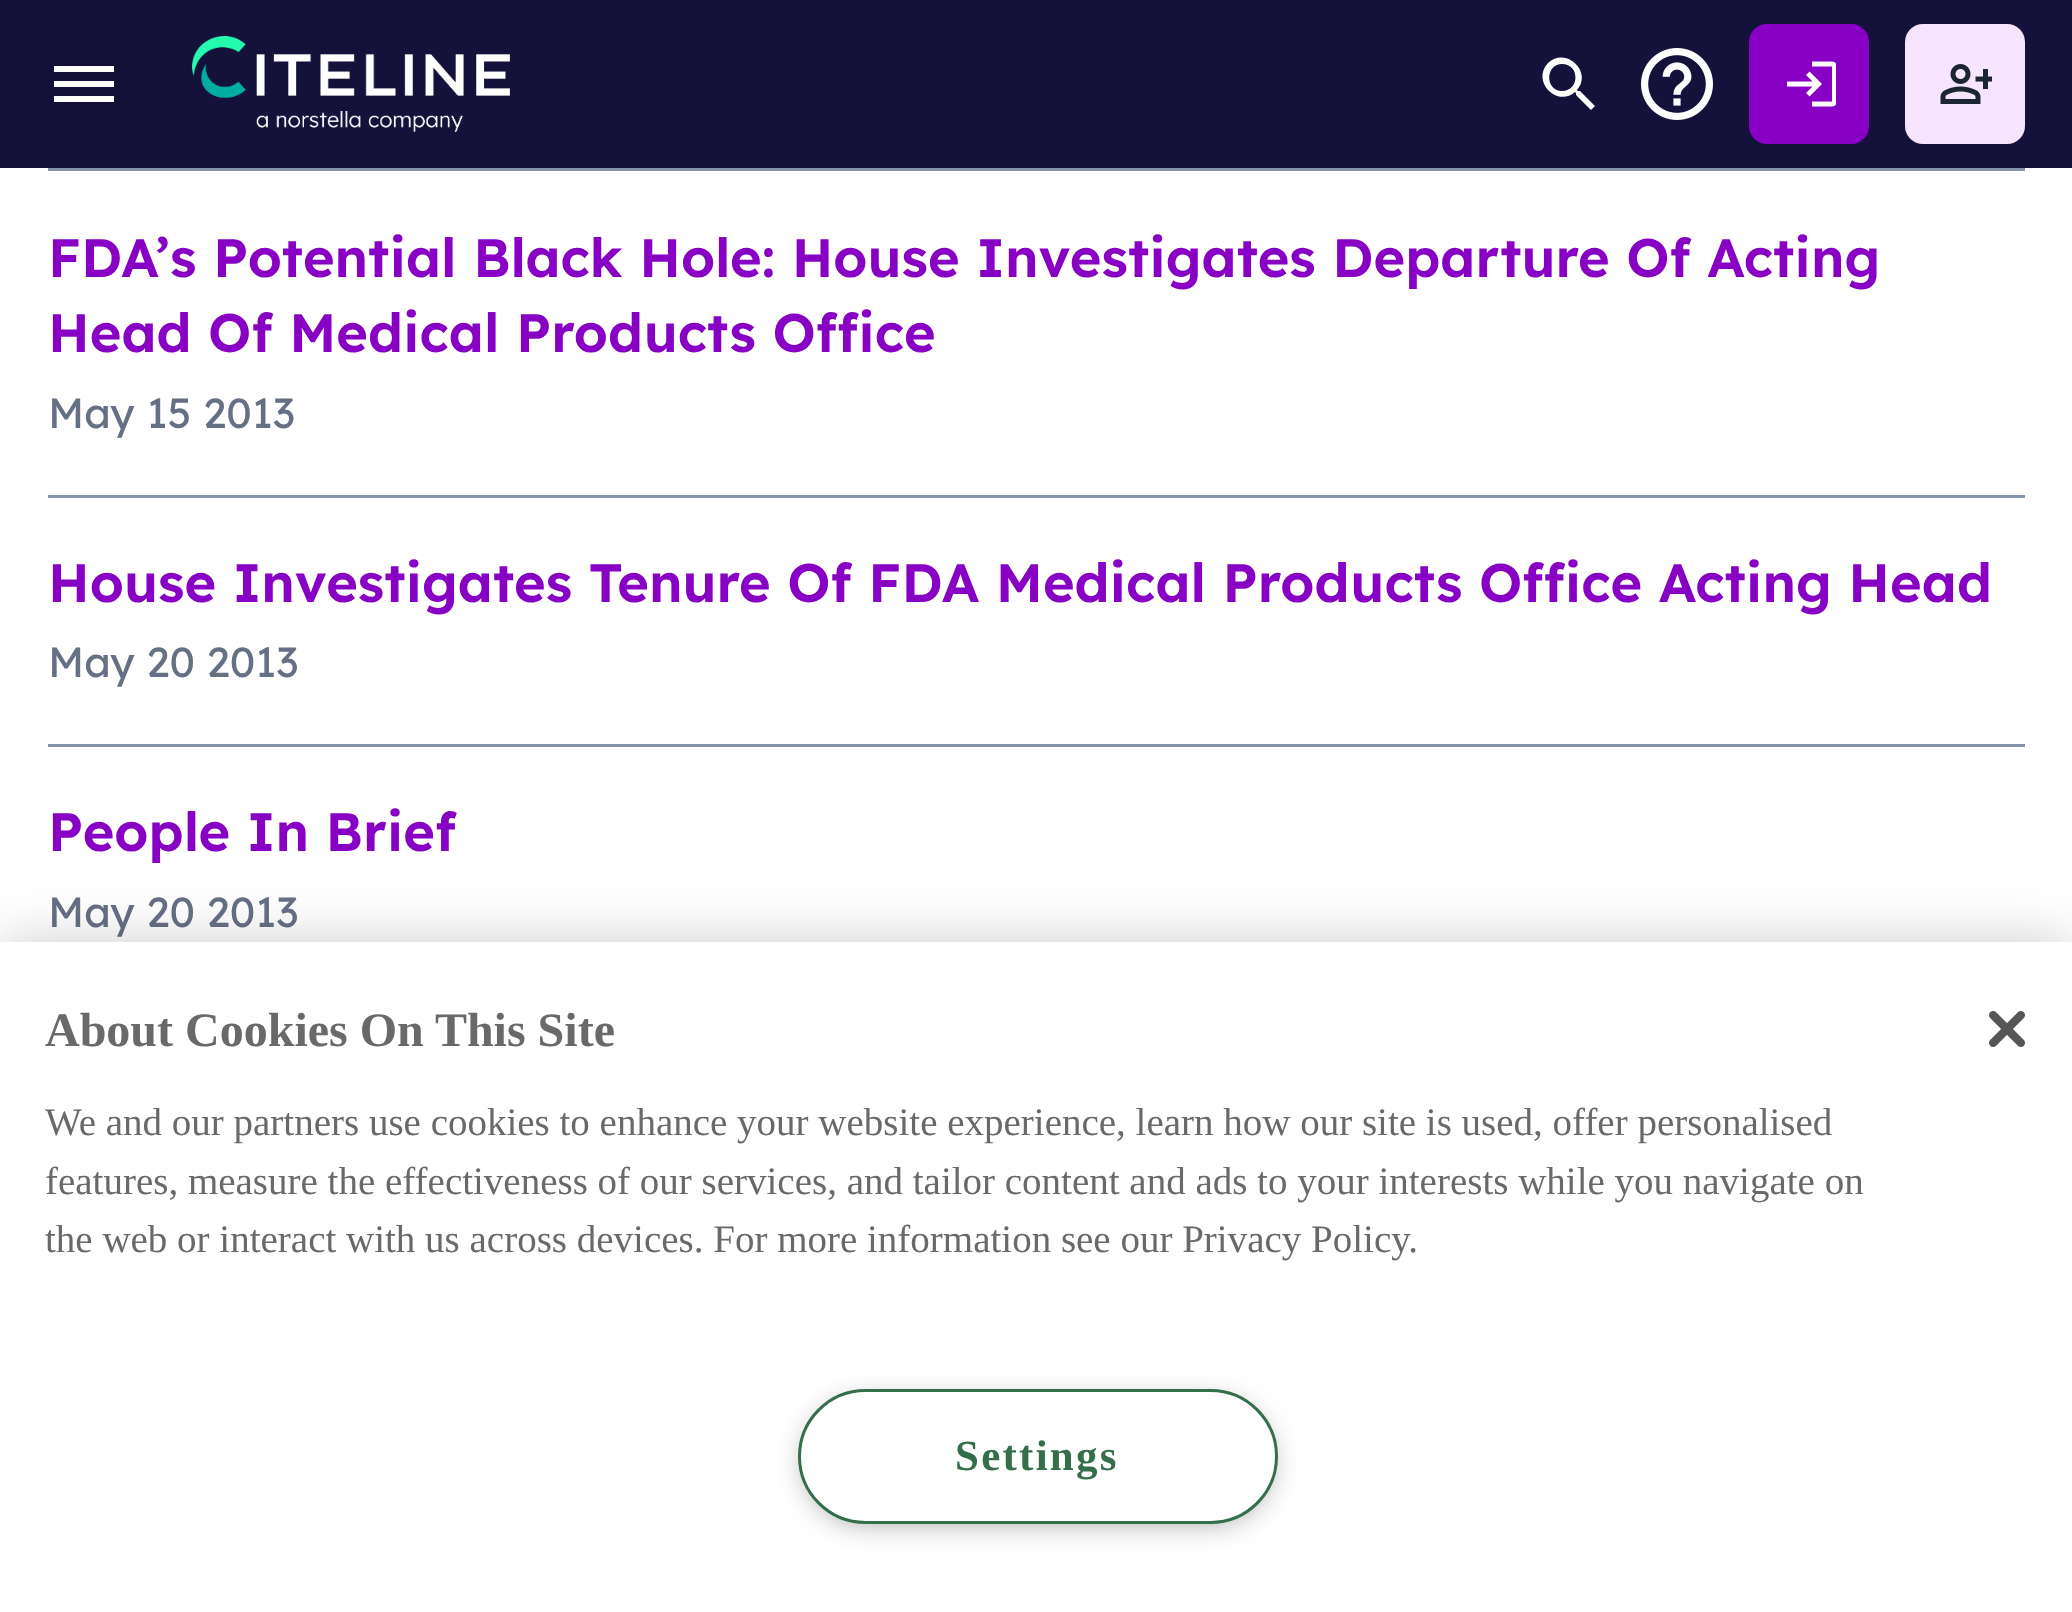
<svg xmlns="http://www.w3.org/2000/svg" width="2072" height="1612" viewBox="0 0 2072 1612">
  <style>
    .t1 { font: 600 54px Lexend; fill: #8700c3; }
    .t2 { font: 42px Lexend; fill: #667085; }
    .t3 { font: bold 48px Liberation Serif; fill: #696969; }
    .t4 { font: 39px Liberation Serif; fill: #696969; }
    .t5 { font: bold 43px Liberation Serif; letter-spacing: 2.25px; fill: #346e4a; }
  </style>
  <rect width="100%" height="100%" fill="#fff"/>
  <rect x="0" y="0" width="2072" height="168" fill="#14123b"/>
  <path d="M54 96V102H114V96ZM54 81V87H114V81ZM54 66V72H114V66Z" fill="#fff"/>
  <image x="192" y="36" width="318" height="96" href="images/1.png"/>
  <path d="M1580 91H1578L1577 90C1593 72 1566 46 1548 63C1531 81 1557 108 1575 92L1576 93V95L1591 110L1595 106ZM1562 91C1545 91 1545 64 1562 64C1580 64 1580 91 1562 91Z" fill="#fff"/>
  <image x="1641" y="48" width="72" height="72" href="images/2.png"/>
  <rect x="1749" y="24" width="120" height="120" rx="18" fill="#8700c3"/>
  <image x="1787" y="61" width="49" height="46" href="images/3.png"/>
  <rect x="1905" y="24" width="120" height="120" rx="18" fill="#f7e4ff"/>
  <image x="1940" y="64" width="52" height="40" href="images/4.png"/>
  <rect x="48" y="168" width="1977" height="3" fill="#8593aa"/>
  <text x="48" y="277" class="t1">FDA’s Potential Black Hole: House Investigates Departure Of Acting</text>
  <text x="48" y="352" class="t1">Head Of Medical Products Office</text>
  <text x="48" y="428" class="t2">May 15 2013</text>
  <rect x="48" y="495" width="1977" height="3" fill="#8593aa"/>
  <text x="48" y="602" class="t1">House Investigates Tenure Of FDA Medical Products Office Acting Head</text>
  <text x="48" y="677" class="t2">May 20 2013</text>
  <rect x="48" y="744" width="1977" height="3" fill="#8593aa"/>
  <text x="48" y="851" class="t1">People In Brief</text>
  <text x="48" y="927" class="t2">May 20 2013</text>
  <rect x="0" y="942" width="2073" height="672" fill="#00000033" filter="blur(27px)"/>
  <rect x="0" y="942" width="2072" height="670" fill="#fff"/>
  <text x="45" y="1046" class="t3">About Cookies On This Site</text>
  <text x="45" y="1135" class="t4">We and our partners use cookies to enhance your website experience, learn how our site is used, offer personalised</text>
  <text x="45" y="1194" class="t4">features, measure the effectiveness of our services, and tailor content and ads to your interests while you navigate on</text>
  <text x="45" y="1252" class="t4">the web or interact with us across devices. For more information see our Privacy Policy.</text>
  <rect x="807" y="1404" width="462" height="117" rx="58.5" fill="#999" filter="blur(15px)"/>
  <rect x="799.5" y="1390.5" width="477" height="132" rx="66" fill="#fff" stroke="#346e4a" stroke-width="3"/>
  <text x="955" y="1470" class="t5">Settings</text>
  <image x="1989" y="1011" width="36" height="36" href="images/5.png"/>
</svg>
